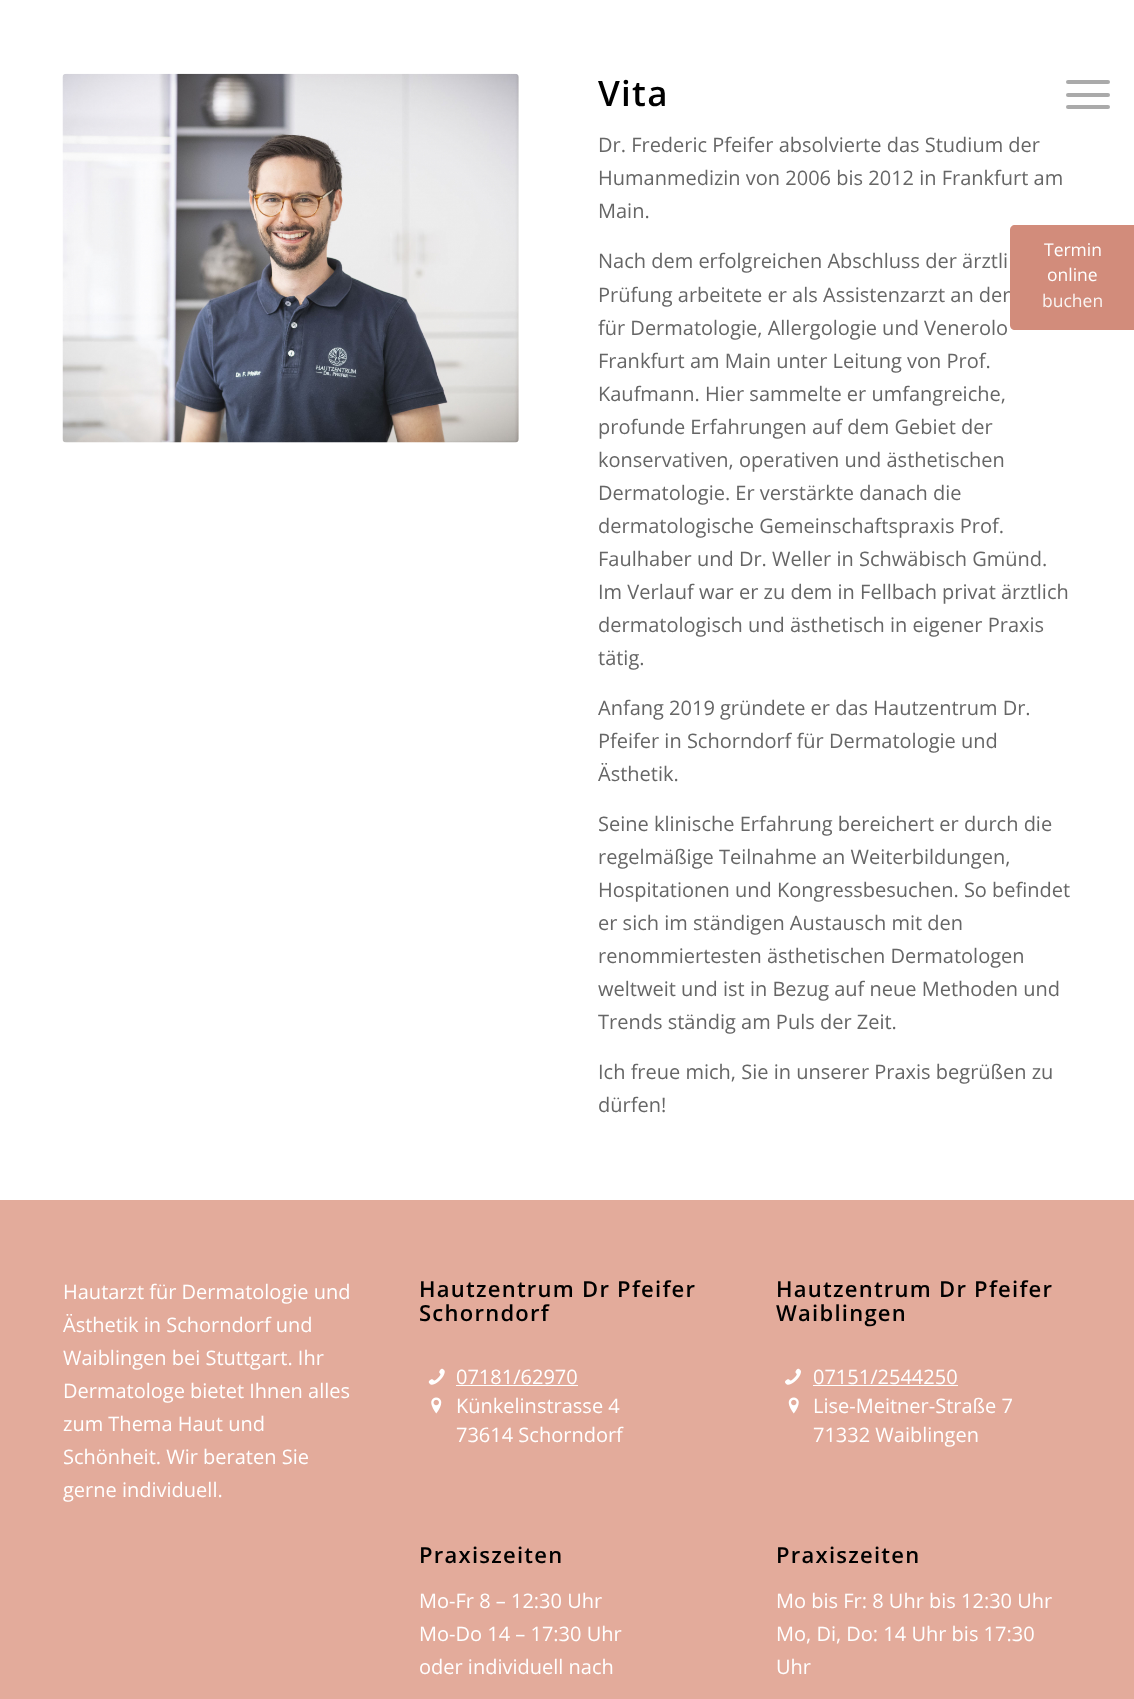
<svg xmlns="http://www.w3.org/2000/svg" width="1134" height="1699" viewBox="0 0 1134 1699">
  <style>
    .t1 { font: 600 35px Open Sans; letter-spacing: 1.25px; fill: #000; }
    .t2 { font: 20px Open Sans; fill: #666; }
    .t3 { font: 20px Open Sans; fill: #fff; }
    .t4 { font: 600 22px Open Sans; letter-spacing: 1.25px; fill: #000; }
    .t5 { font: 17.5px Open Sans; fill: #fff; }
    .t6 { font: 17.5px Open Sans; fill: #faf4f2; }
  </style>
  <rect width="100%" height="100%" fill="#fff"/>
  <image x="62" y="73" width="457" height="370" href="images/1.png"/>
  <text x="598" y="106" class="t1">Vita</text>
  <text x="598" y="152" class="t2">Dr. Frederic Pfeifer absolvierte das Studium der</text>
  <text x="598" y="185" class="t2">Humanmedizin von 2006 bis 2012 in Frankfurt am</text>
  <text x="598" y="218" class="t2">Main.</text>
  <text x="598" y="268" class="t2">Nach dem erfolgreichen Abschluss der ärztli</text>
  <text x="598" y="302" class="t2">Prüfung arbeitete er als Assistenzarzt an der</text>
  <text x="598" y="335" class="t2">für Dermatologie, Allergologie und Venerolo</text>
  <text x="598" y="368" class="t2">Frankfurt am Main unter Leitung von Prof.</text>
  <text x="598" y="401" class="t2">Kaufmann. Hier sammelte er umfangreiche,</text>
  <text x="598" y="434" class="t2">profunde Erfahrungen auf dem Gebiet der</text>
  <text x="598" y="467" class="t2">konservativen, operativen und ästhetischen</text>
  <text x="598" y="500" class="t2">Dermatologie. Er verstärkte danach die</text>
  <text x="598" y="533" class="t2">dermatologische Gemeinschaftspraxis Prof.</text>
  <text x="598" y="566" class="t2">Faulhaber und Dr. Weller in Schwäbisch Gmünd.</text>
  <text x="598" y="599" class="t2">Im Verlauf war er zu dem in Fellbach privat ärztlich</text>
  <text x="598" y="632" class="t2">dermatologisch und ästhetisch in eigener Praxis</text>
  <text x="598" y="665" class="t2">tätig.</text>
  <text x="598" y="715" class="t2">Anfang 2019 gründete er das Hautzentrum Dr.</text>
  <text x="598" y="748" class="t2">Pfeifer in Schorndorf für Dermatologie und</text>
  <text x="598" y="781" class="t2">Ästhetik.</text>
  <text x="598" y="831" class="t2">Seine klinische Erfahrung bereichert er durch die</text>
  <text x="598" y="864" class="t2">regelmäßige Teilnahme an Weiterbildungen,</text>
  <text x="598" y="897" class="t2">Hospitationen und Kongressbesuchen. So befindet</text>
  <text x="598" y="930" class="t2">er sich im ständigen Austausch mit den</text>
  <text x="598" y="963" class="t2">renommiertesten ästhetischen Dermatologen</text>
  <text x="598" y="996" class="t2">weltweit und ist in Bezug auf neue Methoden und</text>
  <text x="598" y="1029" class="t2">Trends ständig am Puls der Zeit.</text>
  <text x="598" y="1079" class="t2">Ich freue mich, Sie in unserer Praxis begrüßen zu</text>
  <text x="598" y="1112" class="t2">dürfen!</text>
  <rect x="0" y="1200" width="1134" height="499" fill="#e3ab9b"/>
  <text x="63" y="1299" class="t3">Hautarzt für Dermatologie und</text>
  <text x="63" y="1332" class="t3">Ästhetik in Schorndorf und</text>
  <text x="63" y="1365" class="t3">Waiblingen bei Stuttgart. Ihr</text>
  <text x="63" y="1398" class="t3">Dermatologe bietet Ihnen alles</text>
  <text x="63" y="1431" class="t3">zum Thema Haut und</text>
  <text x="63" y="1464" class="t3">Schönheit. Wir beraten Sie</text>
  <text x="63" y="1497" class="t3">gerne individuell.</text>
  <text x="419" y="1297" class="t4">Hautzentrum Dr Pfeifer</text>
  <text x="419" y="1321" class="t4">Schorndorf</text>
  <image x="428" y="1368" width="17" height="17" href="images/2.png"/>
  <text x="456" y="1384" class="t3">07181/62970</text>
  <rect x="456" y="1385" width="122" height="1" fill="#fff"/>
  <image x="431" y="1397" width="11" height="17" href="images/3.png"/>
  <text x="456" y="1413" class="t3">Künkelinstrasse 4</text>
  <text x="456" y="1442" class="t3">73614 Schorndorf</text>
  <text x="419" y="1563" class="t4">Praxiszeiten</text>
  <text x="419" y="1608" class="t3">Mo-Fr 8 – 12:30 Uhr</text>
  <text x="419" y="1641" class="t3">Mo-Do 14 – 17:30 Uhr</text>
  <text x="419" y="1674" class="t3">oder individuell nach</text>
  <text x="776" y="1297" class="t4">Hautzentrum Dr Pfeifer</text>
  <text x="776" y="1321" class="t4">Waiblingen</text>
  <image x="785" y="1368" width="16" height="17" href="images/4.png"/>
  <text x="813" y="1384" class="t3">07151/2544250</text>
  <rect x="813" y="1385" width="145" height="1" fill="#fff"/>
  <image x="788" y="1397" width="11" height="17" href="images/5.png"/>
  <text x="813" y="1413" class="t3">Lise-Meitner-Straße 7</text>
  <text x="813" y="1442" class="t3">71332 Waiblingen</text>
  <text x="776" y="1563" class="t4">Praxiszeiten</text>
  <text x="776" y="1608" class="t3">Mo bis Fr: 8 Uhr bis 12:30 Uhr</text>
  <text x="776" y="1641" class="t3">Mo, Di, Do: 14 Uhr bis 17:30</text>
  <text x="776" y="1674" class="t3">Uhr</text>
  <rect x="1066" y="93" width="44" height="4" rx="2" fill="#aaa"/>
  <rect x="1066" y="80" width="44" height="4" rx="2" fill="#aaa"/>
  <rect x="1066" y="105" width="44" height="4" rx="2" fill="#aaa"/>
  <path d="M1015 225H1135V330H1015C1012 330 1010 328 1010 325V230C1010 227 1012 225 1015 225Z" fill="#cd806de6"/>
  <text x="1044" y="256" class="t5">Termin</text>
  <text x="1047" y="281" class="t5">online</text>
  <text x="1042" y="307" class="t6">buchen</text>
</svg>
